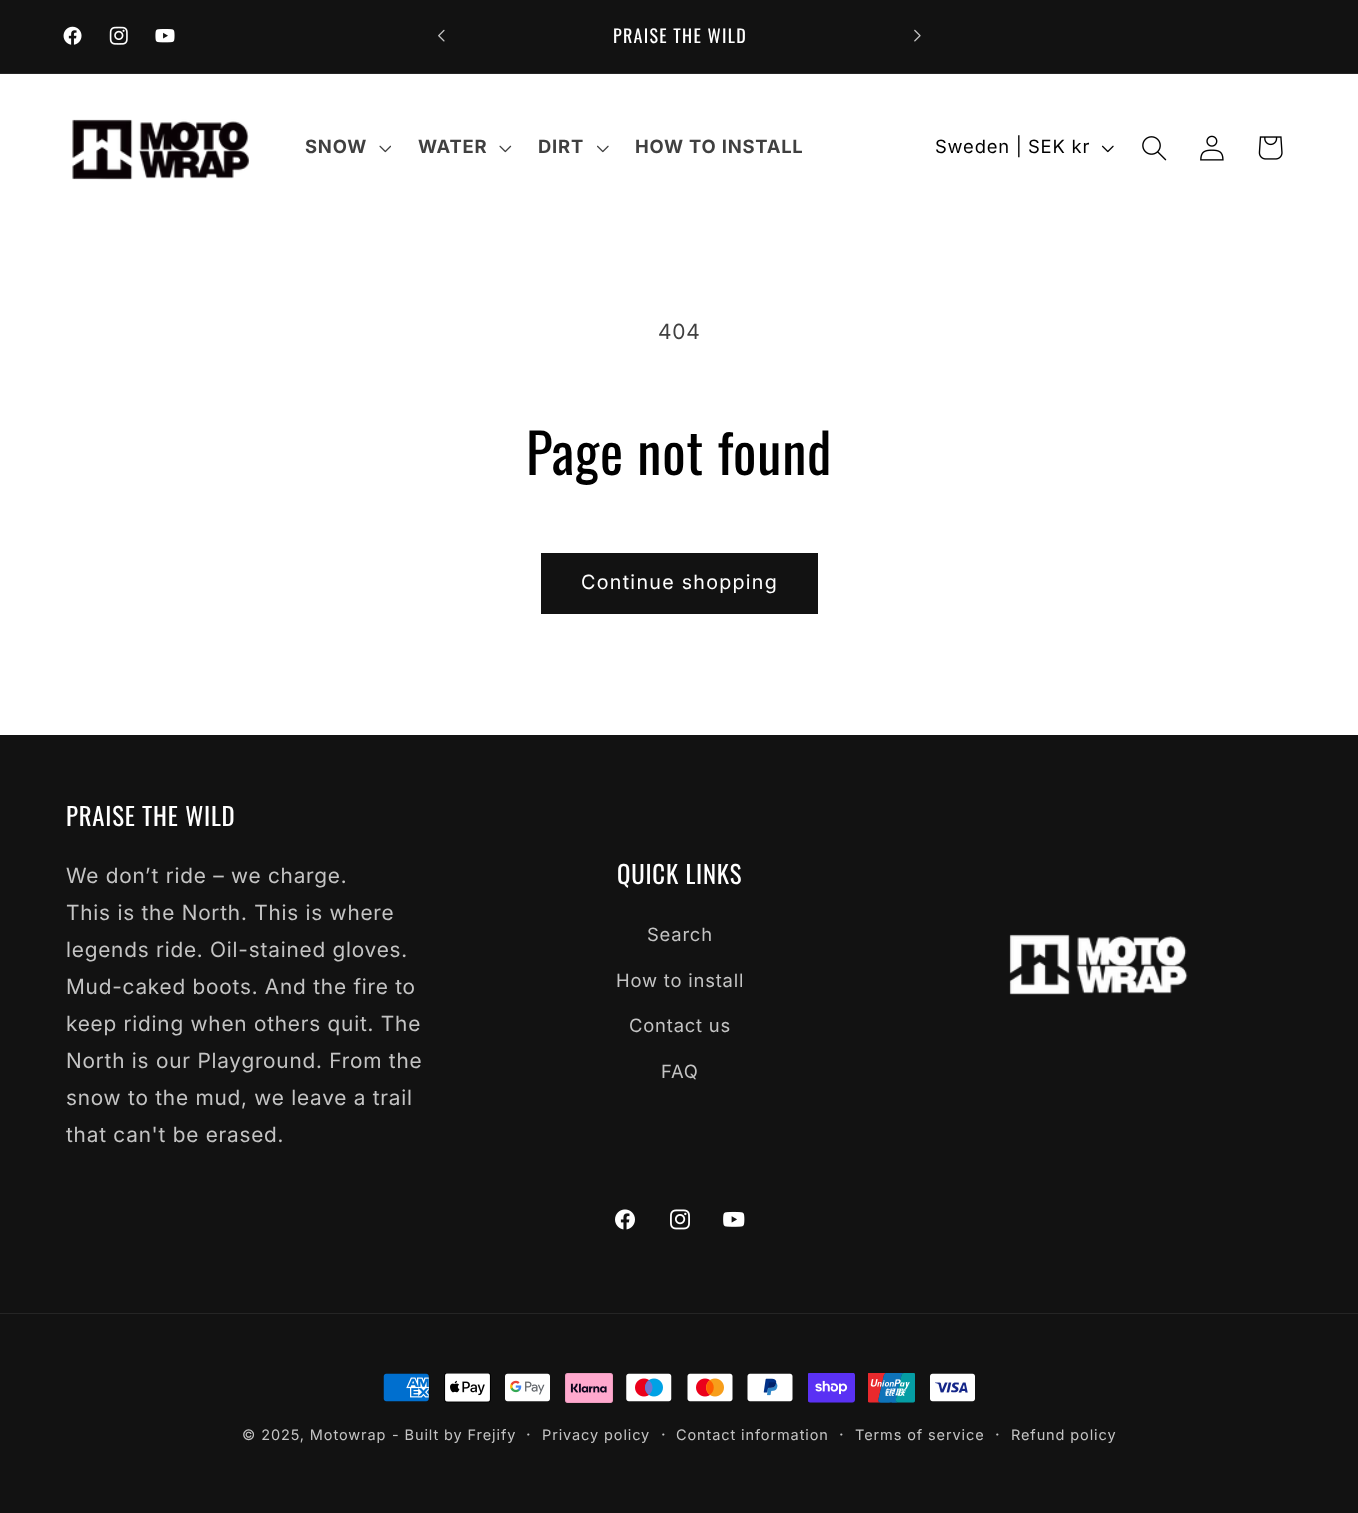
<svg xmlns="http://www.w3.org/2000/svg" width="1358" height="1513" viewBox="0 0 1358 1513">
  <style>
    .t1 { font: 18px Oswald; letter-spacing: 1.3px; fill: #fff; }
    .t2 { font: bold 18.4px Inter; letter-spacing: 0.8px; fill: #404040; }
    .t3 { font: 18.4px 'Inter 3'; letter-spacing: 0.8px; fill: #000; }
    .t4 { font: 21px Inter; letter-spacing: 0.8px; fill: #404040; }
    .t5 { font: 55px Oswald; letter-spacing: 0.8px; fill: #000; }
    .t6 { font: 19.75px 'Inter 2'; letter-spacing: 1.3px; fill: #fff; }
    .t7 { font: 24.75px Oswald; letter-spacing: 0.8px; fill: #fff; }
    .t8 { font: 21px Inter; letter-spacing: 0.8px; fill: #c4c4c4; }
    .t9 { font: 18.4px 'Inter 3'; letter-spacing: 0.8px; fill: #c4c4c4; }
    .t10 { font: 14.5px 'Inter 3'; letter-spacing: 0.9px; fill: #c4c4c4; }
    .t11 { font: 16px 'Inter 3'; letter-spacing: 0.9px; fill: #c4c4c4; }
  </style>
  <rect width="100%" height="100%" fill="#fff"/>
  <rect x="0" y="0" width="1358" height="73" fill="#121212"/>
  <rect x="0" y="73" width="1358" height="1" fill="#252525"/>
  <image x="63" y="26" width="19" height="19" href="images/1.png"/>
  <image x="109" y="26" width="19" height="19" href="images/2.png"/>
  <image x="155" y="29" width="20" height="14" href="images/3.png"/>
  <image x="438" y="29" width="7" height="13" href="images/4.png"/>
  <text x="613" y="43" class="t1">PRAISE THE WILD</text>
  <image x="914" y="29" width="7" height="13" href="images/5.png"/>
  <image x="72" y="119" width="178" height="61" href="images/6.png"/>
  <text x="305" y="153" class="t2">SNOW</text>
  <image x="379" y="145" width="12" height="8" href="images/7.png"/>
  <text x="418" y="153" class="t2">WATER</text>
  <image x="499" y="145" width="13" height="8" href="images/8.png"/>
  <text x="538" y="153" class="t2">DIRT</text>
  <image x="597" y="145" width="12" height="8" href="images/9.png"/>
  <text x="635" y="153" class="t2">HOW TO INSTALL</text>
  <text x="935" y="153" class="t3">Sweden |</text>
  <text x="1028" y="153" class="t3">SEK kr</text>
  <image x="1101" y="145" width="13" height="8" href="images/10.png"/>
  <image x="1142" y="136" width="25" height="25" href="images/11.png"/>
  <image x="1200" y="135" width="24" height="26" href="images/12.png"/>
  <image x="1258" y="136" width="25" height="24" href="images/13.png"/>
  <text x="658" y="339" class="t4">404</text>
  <text x="526" y="475" class="t5">Page not found</text>
  <rect x="541" y="553" width="277" height="61" fill="#121212"/>
  <text x="581" y="589" class="t6">Continue shopping</text>
  <rect x="0" y="735" width="1358" height="778" fill="#121212"/>
  <text x="66" y="826" class="t7">PRAISE THE WILD</text>
  <text x="66" y="883" class="t8">We don’t ride – we charge.</text>
  <text x="66" y="920" class="t8">This is the North. This is where</text>
  <text x="66" y="957" class="t8">legends ride. Oil-stained gloves.</text>
  <text x="66" y="994" class="t8">Mud-caked boots. And the fire to</text>
  <text x="66" y="1031" class="t8">keep riding when others quit. The</text>
  <text x="66" y="1068" class="t8">North is our Playground. From the</text>
  <text x="66" y="1105" class="t8">snow to the mud, we leave a trail</text>
  <text x="66" y="1142" class="t8">that can't be erased.</text>
  <text x="617" y="884" class="t7">QUICK LINKS</text>
  <text x="647" y="941" class="t9">Search</text>
  <text x="616" y="987" class="t9">How to install</text>
  <text x="629" y="1032" class="t9">Contact us</text>
  <text x="661" y="1078" class="t9">FAQ</text>
  <image x="1009" y="934" width="179" height="61" href="images/14.png"/>
  <image x="615" y="1209" width="20" height="21" href="images/15.png"/>
  <image x="670" y="1209" width="20" height="21" href="images/16.png"/>
  <image x="723" y="1211" width="22" height="16" href="images/17.png"/>
  <rect x="0" y="1313" width="1358" height="1" fill="#252525"/>
  <image x="383" y="1373" width="46" height="29" href="images/18.png"/>
  <image x="444" y="1373" width="47" height="30" href="images/19.png"/>
  <image x="505" y="1373" width="45" height="29" href="images/20.png"/>
  <image x="565" y="1373" width="48" height="30" href="images/21.png"/>
  <image x="626" y="1373" width="46" height="29" href="images/22.png"/>
  <image x="687" y="1373" width="46" height="29" href="images/23.png"/>
  <image x="747" y="1373" width="46" height="29" href="images/24.png"/>
  <image x="808" y="1373" width="47" height="30" href="images/25.png"/>
  <image x="868" y="1373" width="47" height="30" href="images/26.png"/>
  <image x="930" y="1373" width="45" height="29" href="images/27.png"/>
  <text x="242" y="1440" class="t10">© 2025, Motowrap</text>
  <text x="392" y="1440" class="t10">- Built by Frejify</text>
  <text x="526" y="1440" class="t11">·</text>
  <text x="542" y="1440" class="t10">Privacy policy</text>
  <text x="661" y="1440" class="t11">·</text>
  <text x="676" y="1440" class="t10">Contact information</text>
  <text x="839" y="1440" class="t11">·</text>
  <text x="855" y="1440" class="t10">Terms of service</text>
  <text x="995" y="1440" class="t11">·</text>
  <text x="1011" y="1440" class="t10">Refund policy</text>
</svg>
